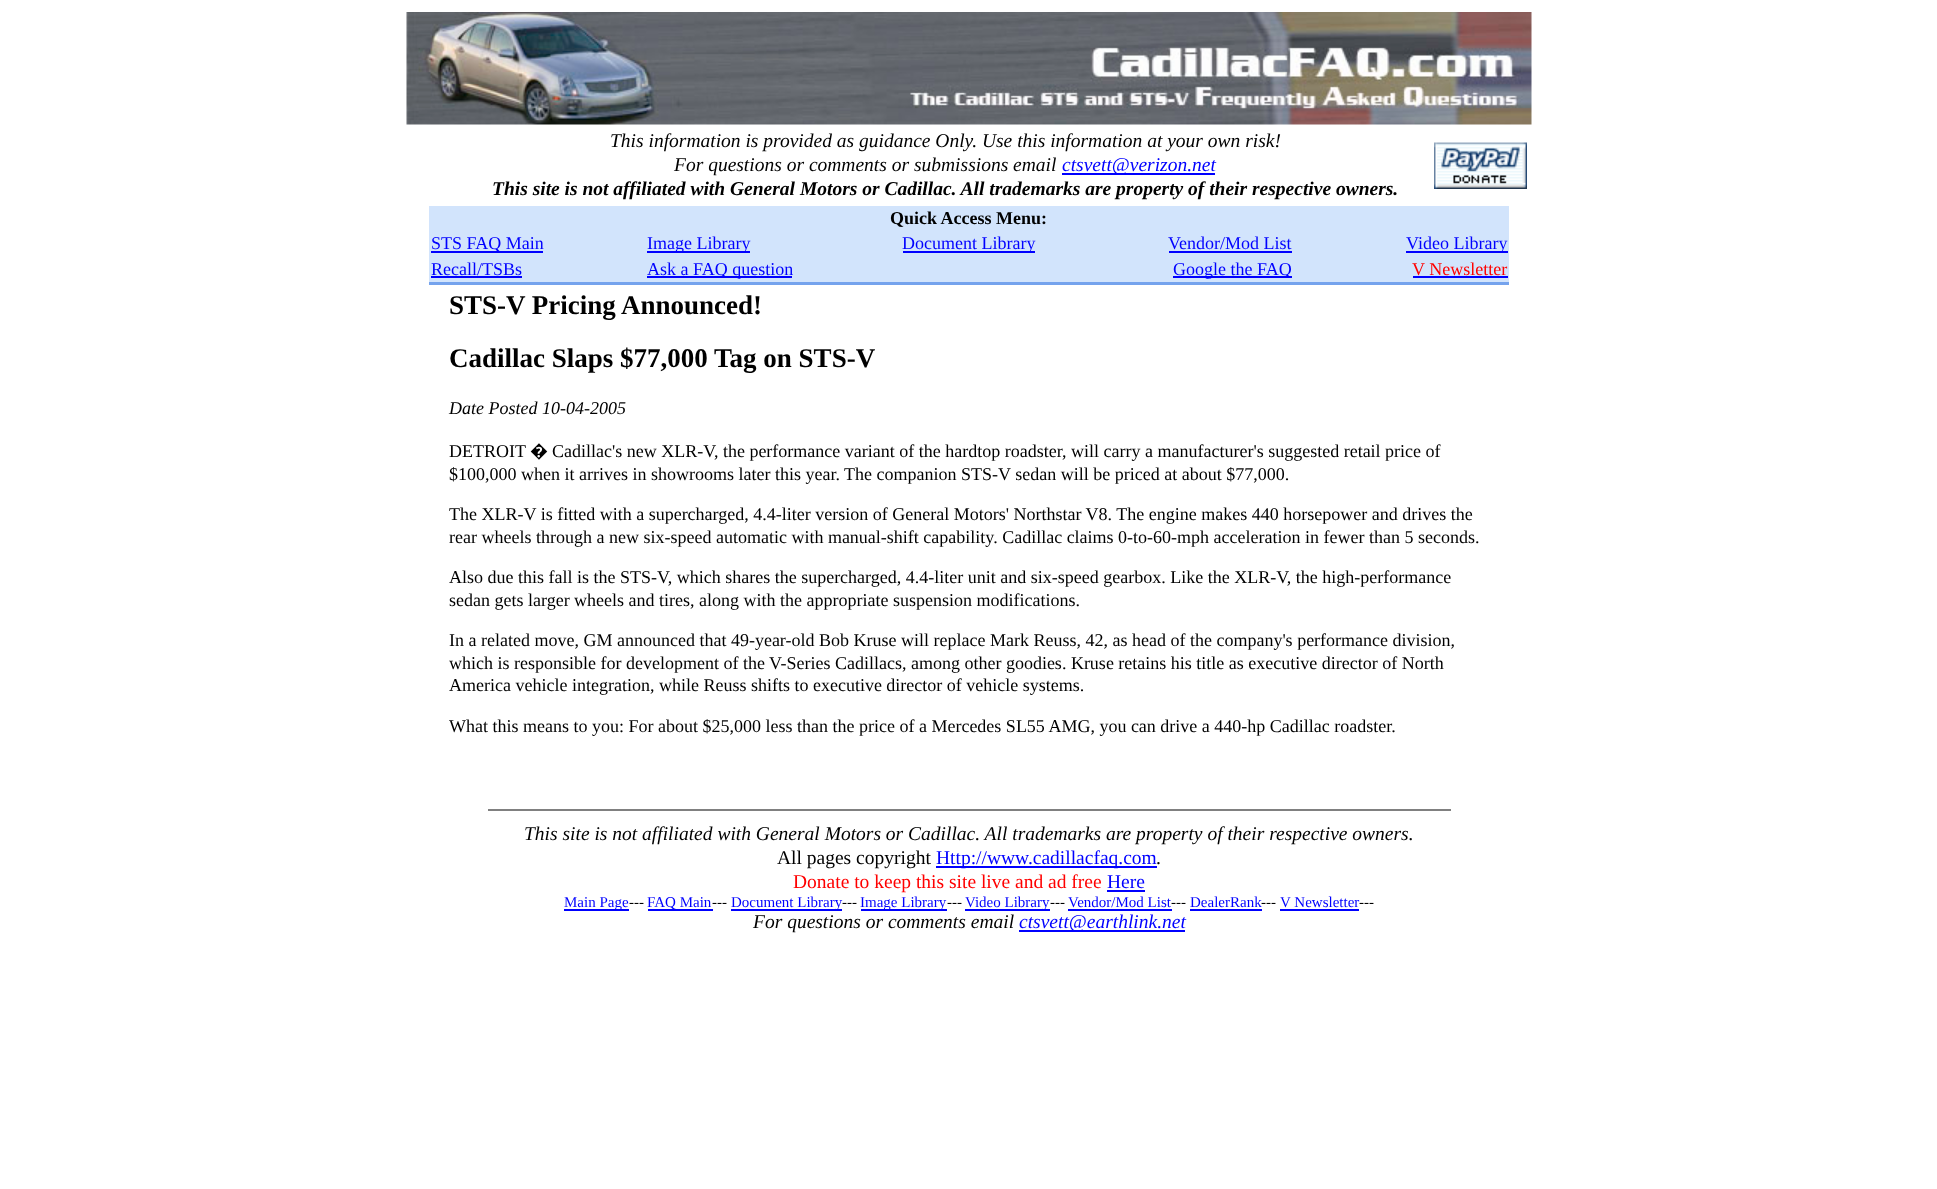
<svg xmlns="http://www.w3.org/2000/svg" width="1937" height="1189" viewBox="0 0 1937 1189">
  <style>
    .t1 { font: italic 19.5px Liberation Serif; fill: #000; }
    .t2 { font: italic 19.5px Liberation Serif; fill: #00f; }
    .t3 { font: italic bold 19.5px Liberation Serif; fill: #000; }
    .t4 { font: bold 18px Liberation Serif; fill: #000; }
    .t5 { font: 18px Liberation Serif; fill: #00f; }
    .t6 { font: 18px Liberation Serif; fill: #f00; }
    .t7 { font: bold 27px Liberation Serif; fill: #000; }
    .t8 { font: italic 18px Liberation Serif; fill: #000; }
    .t9 { font: 18px Liberation Serif; fill: #000; }
    .t10 { font: 18px Noto Sans; fill: #000; }
    .t11 { font: 19.5px Liberation Serif; fill: #000; }
    .t12 { font: 19.5px Liberation Serif; fill: #00f; }
    .t13 { font: 19.5px Liberation Serif; fill: #f00; }
    .t14 { font: 15px Liberation Serif; fill: #00f; }
    .t15 { font: 15px Liberation Serif; fill: #000; }
  </style>
  <rect width="100%" height="100%" fill="#fff"/>
  <image x="406" y="12" width="1126" height="113" href="images/1.png"/>
  <text x="610" y="147" class="t1">This information is provided as guidance Only. Use this information at your own risk!</text>
  <text x="674" y="171" class="t1">For questions or comments or submissions email</text>
  <rect x="1062" y="173" width="153" height="2" fill="#00f"/>
  <text x="1062" y="171" class="t2">ctsvett@verizon.net</text>
  <text x="492" y="195" class="t3">This site is not affiliated with General Motors or Cadillac. All trademarks are property of their respective owners.</text>
  <image x="1434" y="142" width="93" height="47" href="images/2.png"/>
  <rect x="429" y="206" width="1080" height="76" fill="#d2e4fc"/>
  <text x="890" y="224" class="t4">Quick Access Menu:</text>
  <rect x="431" y="251" width="112" height="2" fill="#00f"/>
  <text x="431" y="249" class="t5">STS FAQ Main</text>
  <rect x="647" y="251" width="103" height="2" fill="#00f"/>
  <text x="647" y="249" class="t5">Image Library</text>
  <rect x="903" y="251" width="132" height="2" fill="#00f"/>
  <text x="902" y="249" class="t5">Document Library</text>
  <text x="1168" y="249" class="t5">Vendor/Mod List</text>
  <rect x="1169" y="251" width="123" height="2" fill="#00f"/>
  <rect x="1406" y="251" width="102" height="2" fill="#00f"/>
  <text x="1406" y="249" class="t5">Video Library</text>
  <text x="431" y="275" class="t5">Recall/TSBs</text>
  <rect x="431" y="276" width="91" height="2" fill="#00f"/>
  <rect x="647" y="276" width="145" height="2" fill="#00f"/>
  <text x="647" y="275" class="t5">Ask a FAQ question</text>
  <rect x="1173" y="276" width="119" height="2" fill="#00f"/>
  <text x="1173" y="275" class="t5">Google the FAQ</text>
  <text x="1412" y="275" class="t6">V Newsletter</text>
  <rect x="1413" y="276" width="95" height="2" fill="#00f"/>
  <rect x="429" y="282" width="1080" height="3" fill="#75a3ed"/>
  <text x="449" y="314" class="t7">STS-V Pricing Announced!</text>
  <text x="449" y="367" class="t7">Cadillac Slaps $77,000 Tag on STS-V</text>
  <text x="449" y="414" class="t8">Date Posted 10-04-2005</text>
  <text x="449" y="457" class="t9">DETROIT</text>
  <text x="530" y="457" class="t10">�</text>
  <text x="552" y="457" class="t9">Cadillac's new XLR-V, the performance variant of the hardtop roadster, will carry a manufacturer's suggested retail price of</text>
  <text x="449" y="480" class="t9">$100,000 when it arrives in showrooms later this year. The companion STS-V sedan will be priced at about $77,000.</text>
  <text x="449" y="520" class="t9">The XLR-V is fitted with a supercharged, 4.4-liter version of General Motors' Northstar V8. The engine makes 440 horsepower and drives the</text>
  <text x="449" y="543" class="t9">rear wheels through a new six-speed automatic with manual-shift capability. Cadillac claims 0-to-60-mph acceleration in fewer than 5 seconds.</text>
  <text x="449" y="583" class="t9">Also due this fall is the STS-V, which shares the supercharged, 4.4-liter unit and six-speed gearbox. Like the XLR-V, the high-performance</text>
  <text x="449" y="606" class="t9">sedan gets larger wheels and tires, along with the appropriate suspension modifications.</text>
  <text x="449" y="646" class="t9">In a related move, GM announced that 49-year-old Bob Kruse will replace Mark Reuss, 42, as head of the company's performance division,</text>
  <text x="449" y="669" class="t9">which is responsible for development of the V-Series Cadillacs, among other goodies. Kruse retains his title as executive director of North</text>
  <text x="449" y="691" class="t9">America vehicle integration, while Reuss shifts to executive director of vehicle systems.</text>
  <text x="449" y="732" class="t9">What this means to you: For about $25,000 less than the price of a Mercedes SL55 AMG, you can drive a 440-hp Cadillac roadster.</text>
  <rect x="488" y="809" width="963" height="2" fill="#808080"/>
  <text x="524" y="840" class="t1">This site is not affiliated with General Motors or Cadillac. All trademarks are property of their respective owners.</text>
  <text x="777" y="864" class="t11">All pages copyright</text>
  <rect x="936" y="866" width="221" height="2" fill="#00f"/>
  <text x="936" y="864" class="t12">Http://www.cadillacfaq.com</text>
  <text x="1156" y="864" class="t11">.</text>
  <text x="793" y="888" class="t13">Donate to keep this site live and ad free</text>
  <text x="1107" y="888" class="t12">Here</text>
  <rect x="1107" y="890" width="38" height="2" fill="#00f"/>
  <rect x="564" y="909" width="65" height="2" fill="#00f"/>
  <text x="564" y="907" class="t14">Main Page</text>
  <text x="629" y="907" class="t15">---</text>
  <rect x="648" y="909" width="65" height="2" fill="#00f"/>
  <text x="647" y="907" class="t14">FAQ Main</text>
  <text x="712" y="907" class="t15">---</text>
  <rect x="731" y="909" width="111" height="2" fill="#00f"/>
  <text x="731" y="907" class="t14">Document Library</text>
  <text x="842" y="907" class="t15">---</text>
  <rect x="861" y="909" width="86" height="2" fill="#00f"/>
  <text x="860" y="907" class="t14">Image Library</text>
  <text x="947" y="907" class="t15">---</text>
  <rect x="965" y="909" width="85" height="2" fill="#00f"/>
  <text x="965" y="907" class="t14">Video Library</text>
  <text x="1050" y="907" class="t15">---</text>
  <text x="1068" y="907" class="t14">Vendor/Mod List</text>
  <text x="1171" y="907" class="t15">---</text>
  <rect x="1068" y="909" width="104" height="2" fill="#00f"/>
  <text x="1190" y="907" class="t14">DealerRank</text>
  <text x="1261" y="907" class="t15">---</text>
  <rect x="1190" y="909" width="72" height="2" fill="#00f"/>
  <text x="1280" y="907" class="t14">V Newsletter</text>
  <text x="1359" y="907" class="t15">---</text>
  <rect x="1280" y="909" width="79" height="2" fill="#00f"/>
  <text x="753" y="928" class="t1">For questions or comments email</text>
  <rect x="1019" y="930" width="166" height="2" fill="#00f"/>
  <text x="1019" y="928" class="t2">ctsvett@earthlink.net</text>
</svg>
